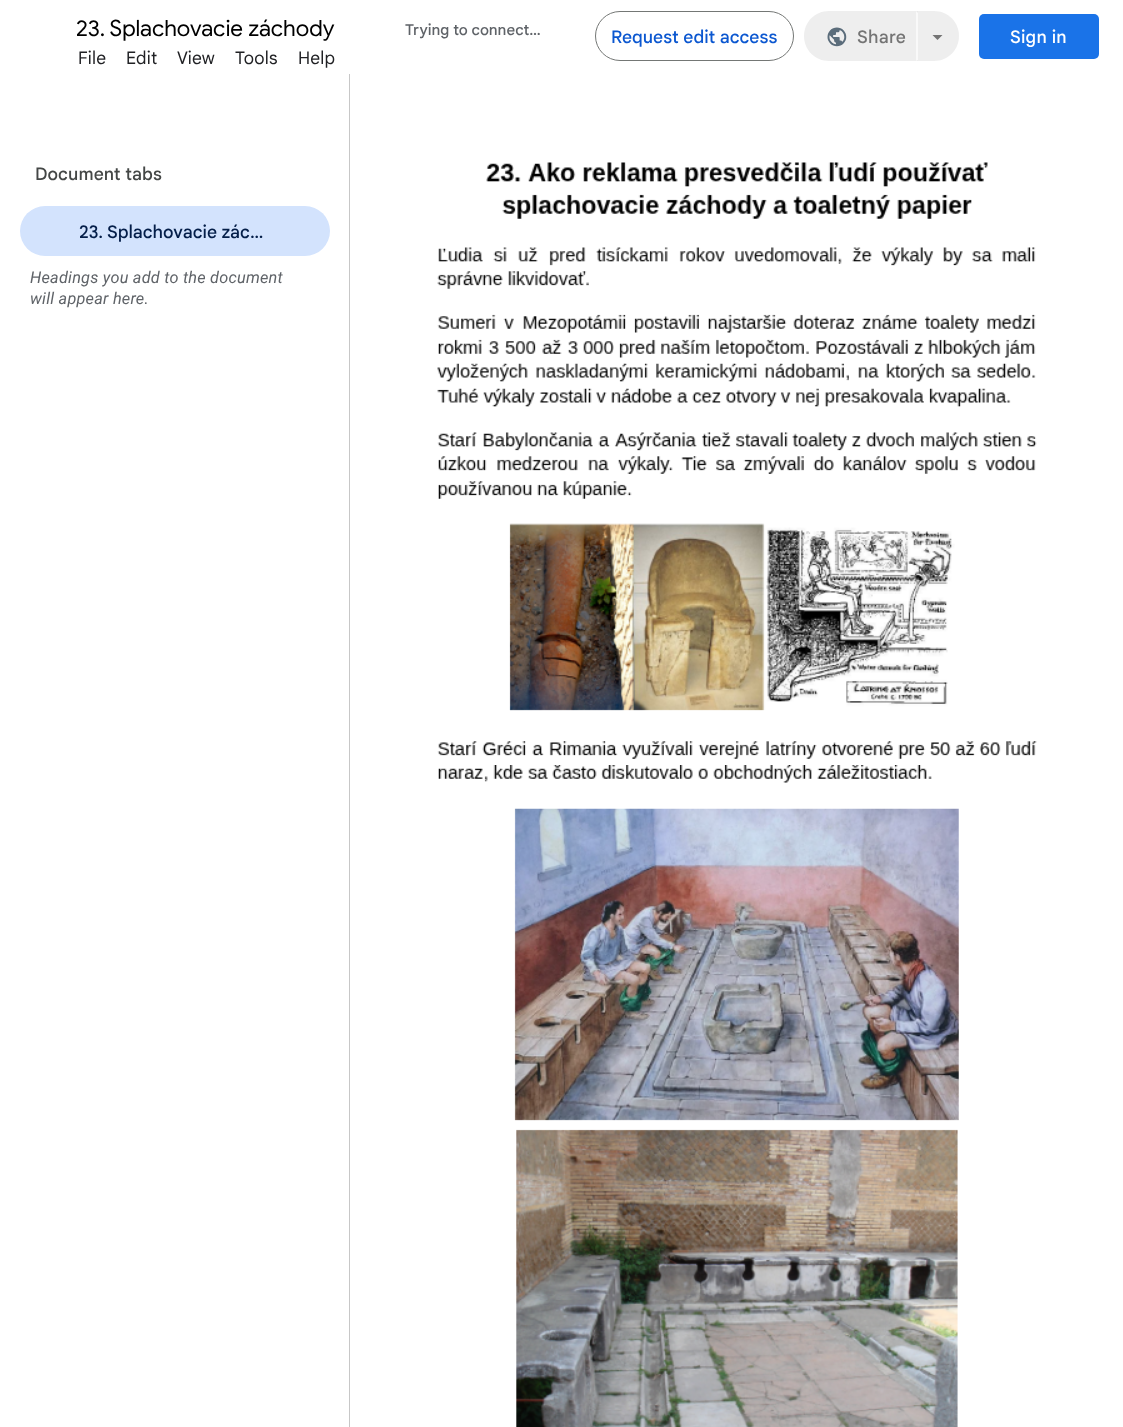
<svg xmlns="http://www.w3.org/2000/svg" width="1123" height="1427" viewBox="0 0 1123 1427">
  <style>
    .t1 { font: 22.5px 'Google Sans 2'; fill: #000; }
    .t2 { font: 500 15px Google Sans; fill: #5f6368; }
    .t3 { font: 500 17.5px Google Sans; fill: #0b57d0; }
    .t4 { font: 500 17.5px Google Sans; letter-spacing: 0.25px; fill: #747474; }
    .t5 { font: 500 17.5px Google Sans; letter-spacing: 0.25px; fill: #fff; }
    .t6 { font: 17.5px Google Sans; letter-spacing: 0.25px; fill: #202124; }
    .t7 { font: 500 17.5px Google Sans; letter-spacing: 0.1px; fill: #444746; }
    .t8 { font: 500 17.5px Google Sans; fill: #041e49; }
    .t9 { font: italic 16.25px Roboto; letter-spacing: 0.25px; fill: #5f6368; }
  </style>
  <rect width="100%" height="100%" fill="#fff"/>
  <text x="76" y="36" class="t1">23. Splachovacie záchody</text>
  <text x="405" y="35" class="t2">Trying to connect…</text>
  <rect x="595.5" y="11.5" width="198" height="49" rx="24.5" fill="none" stroke="#747775"/>
  <text x="611" y="43" class="t3">Request edit access</text>
  <path d="M829 11H918V61H829C815 61 804 50 804 36C804 22 815 11 829 11Z" fill="#eee"/>
  <image x="827" y="27" width="20" height="20" href="images/1.png"/>
  <text x="857" y="43" class="t4">Share</text>
  <path d="M916 11H934C948 11 959 22 959 36C959 50 948 61 934 61H916Z" fill="#e4e4e49e"/>
  <path d="M916 61V11L918 13V60Z" fill="#f9f9f9"/>
  <path d="M932.5 35H942.5L937.5 40Z" fill="#747474"/>
  <rect x="979" y="14" width="120" height="45" rx="5" fill="#1a73e8"/>
  <text x="1010" y="43" class="t5">Sign in</text>
  <text x="78" y="64" class="t6">File</text>
  <text x="126" y="64" class="t6">Edit</text>
  <text x="177" y="64" class="t6">View</text>
  <text x="235" y="64" class="t6">Tools</text>
  <text x="298" y="64" class="t6">Help</text>
  <rect x="349" y="74" width="1" height="1353" fill="#c7c7c7"/>
  <text x="35" y="180" class="t7">Document tabs</text>
  <rect x="20" y="206" width="310" height="50" rx="25" fill="#d3e3fd"/>
  <text x="79" y="238" class="t8">23. Splachovacie zác…</text>
  <text x="30" y="283" class="t9">Headings you add to the document</text>
  <text x="30" y="304" class="t9">will appear here.</text>
  <image x="437" y="162" width="600" height="597" href="images/2.png"/>
  <image x="438" y="765" width="521" height="662" href="images/3.png"/>
</svg>
